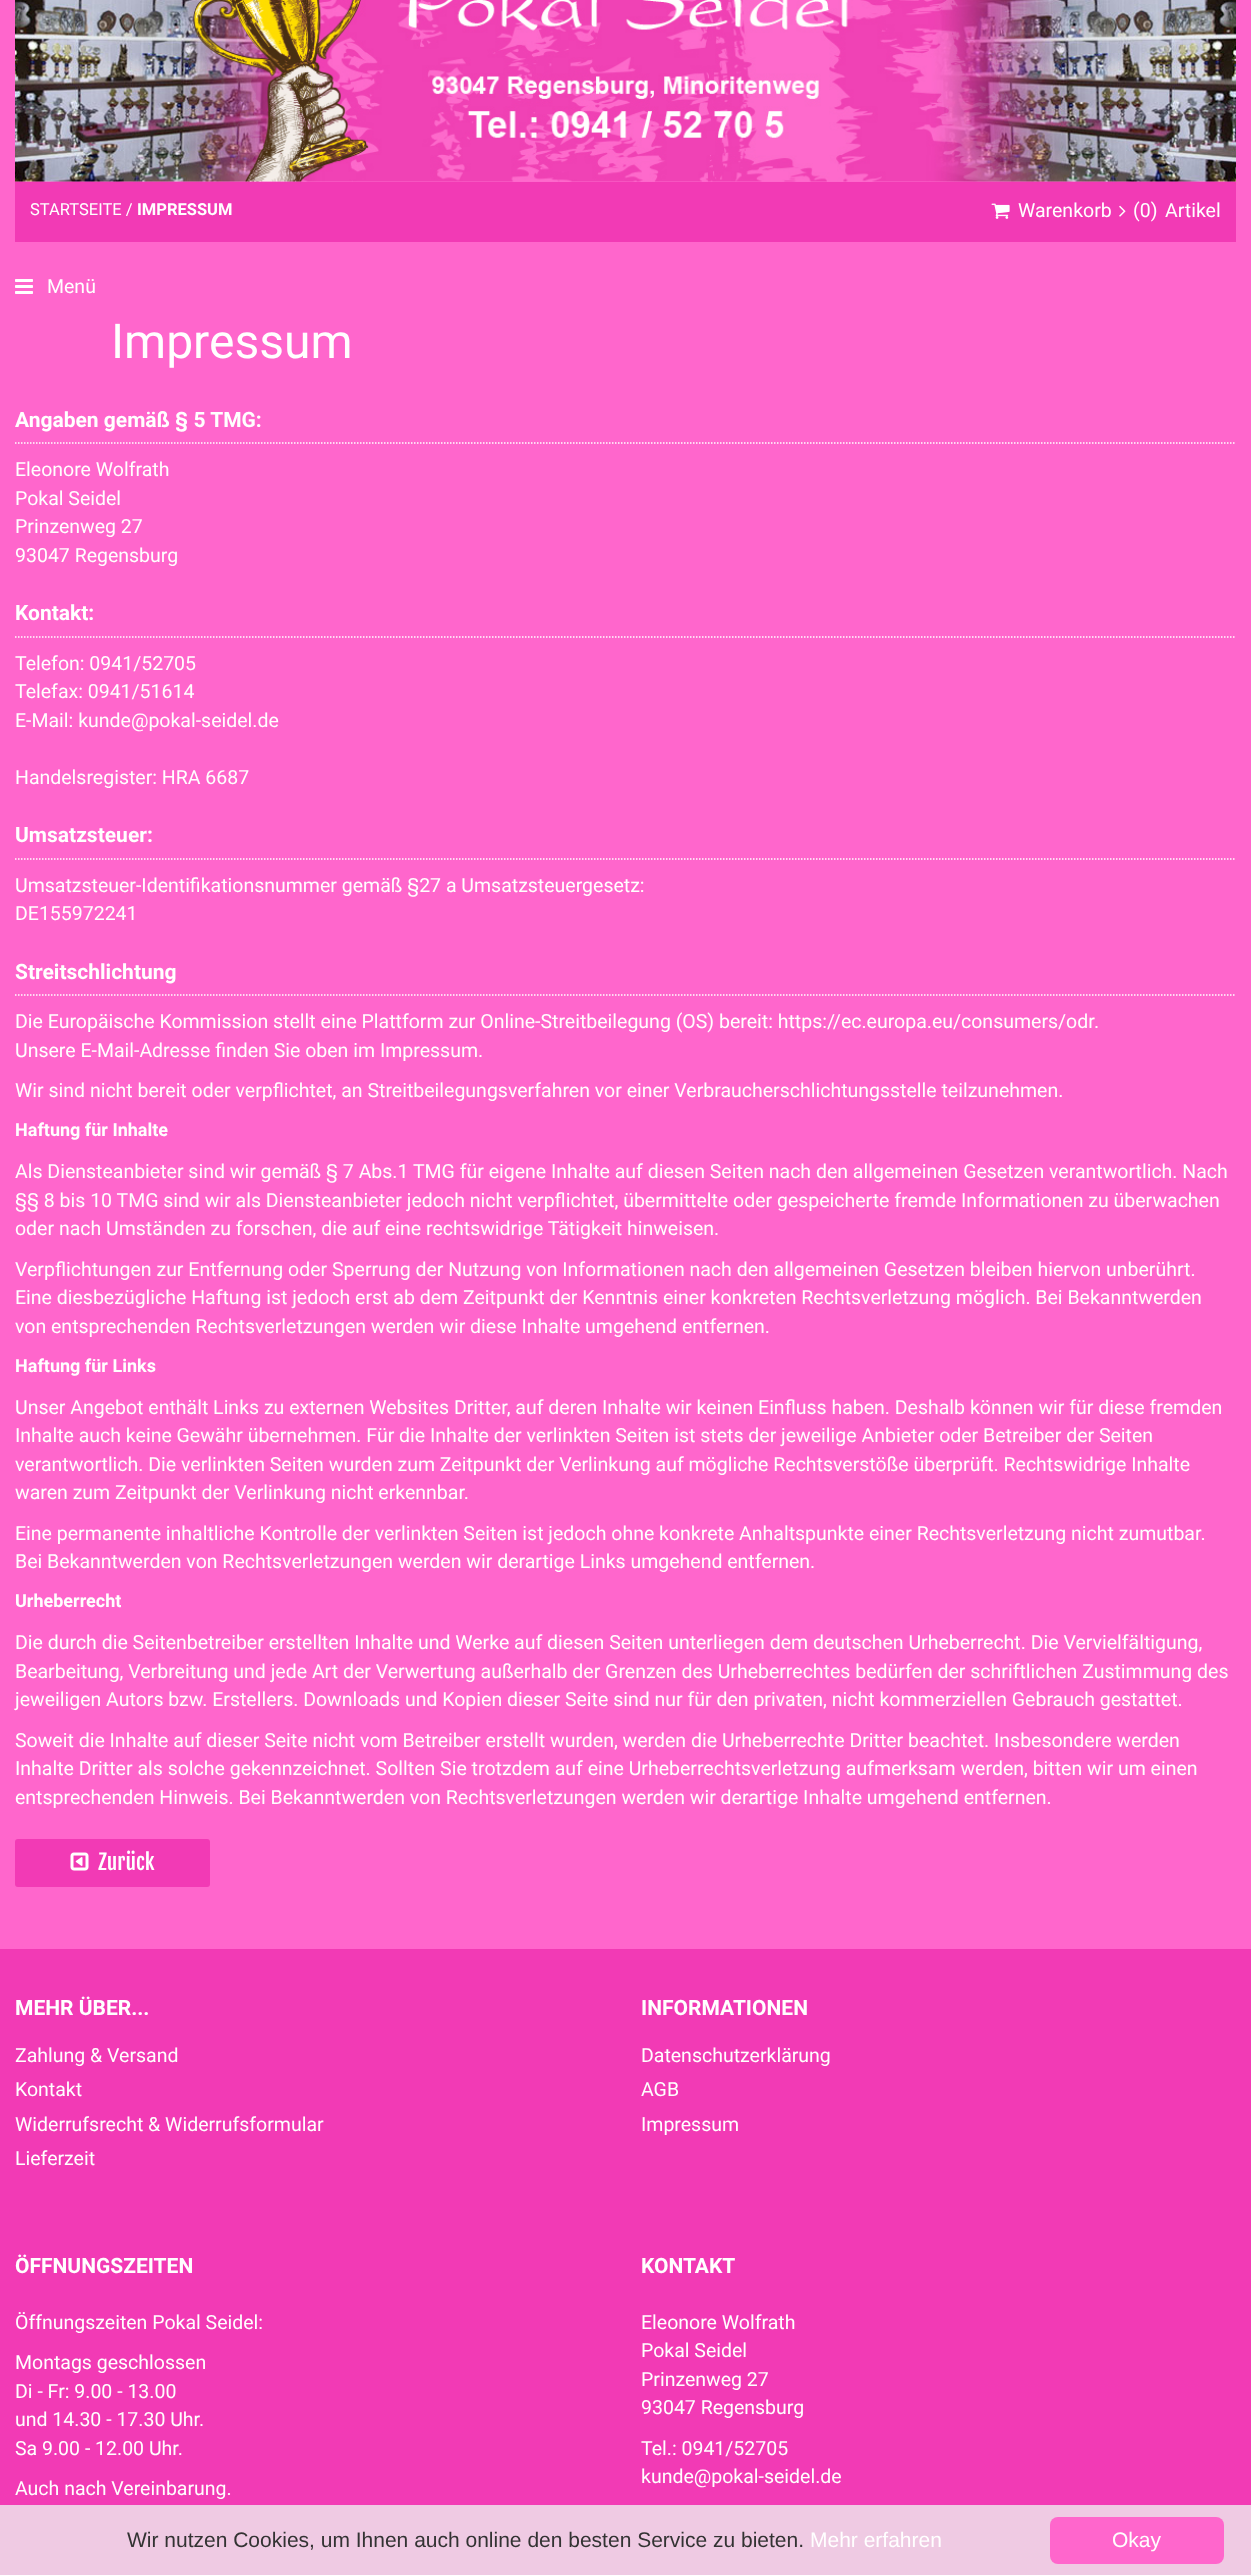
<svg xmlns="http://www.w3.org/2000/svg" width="1251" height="2575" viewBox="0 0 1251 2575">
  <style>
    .t1 { font: 16.5px Roboto; fill: #fff; }
    .t2 { font: bold 16.5px Roboto; fill: #fff; }
    .t3 { font: 19.5px Roboto; fill: #fff; }
    .t4 { font: 48px Roboto; fill: #fff; }
    .t5 { font: bold 21px Roboto; fill: #fff; }
    .t6 { font: bold 18px Roboto; fill: #fff; }
    .t7 { font: 21px Fjalla One; fill: #fff; }
    .t8 { font: 21px Liberation Sans; fill: #333; }
    .t9 { font: 21px Liberation Sans; fill: #fff; }
  </style>
  <rect width="100%" height="100%" fill="#f6c"/>
  <image x="15" y="0" width="1221" height="182" href="images/1.png"/>
  <rect x="15" y="182" width="1221" height="60" fill="#f23ab5"/>
  <text x="30" y="215" class="t1">STARTSEITE /</text>
  <text x="137" y="215" class="t2">IMPRESSUM</text>
  <image x="991" y="203" width="19" height="16" href="images/2.png"/>
  <text x="1018" y="217" class="t3">Warenkorb</text>
  <image x="1119" y="205" width="7" height="12" href="images/3.png"/>
  <text x="1133" y="217" class="t3">(0)</text>
  <text x="1165" y="217" class="t3">Artikel</text>
  <image x="15" y="279" width="18" height="15" href="images/4.png"/>
  <text x="47" y="293" class="t3">Menü</text>
  <text x="111" y="358" class="t4">Impressum</text>
  <path d="M15 443H1236" fill="none" stroke="#fff" stroke-width="1.5" stroke-dasharray="1.5 1.5"/>
  <text x="15" y="427" class="t5">Angaben gemäß § 5 TMG:</text>
  <text x="15" y="476" class="t3">Eleonore Wolfrath</text>
  <text x="15" y="505" class="t3">Pokal Seidel</text>
  <text x="15" y="533" class="t3">Prinzenweg 27</text>
  <text x="15" y="562" class="t3">93047 Regensburg</text>
  <path d="M15 637H1236" fill="none" stroke="#fff" stroke-width="1.5" stroke-dasharray="1.5 1.5"/>
  <text x="15" y="620" class="t5">Kontakt:</text>
  <text x="15" y="670" class="t3">Telefon: 0941/52705</text>
  <text x="15" y="698" class="t3">Telefax: 0941/51614</text>
  <text x="15" y="727" class="t3">E-Mail: kunde@pokal-seidel.de</text>
  <text x="15" y="784" class="t3">Handelsregister: HRA 6687</text>
  <path d="M15 859H1236" fill="none" stroke="#fff" stroke-width="1.5" stroke-dasharray="1.5 1.5"/>
  <text x="15" y="842" class="t5">Umsatzsteuer:</text>
  <text x="15" y="892" class="t3">Umsatzsteuer-Identifikationsnummer gemäß §27 a Umsatzsteuergesetz:</text>
  <text x="15" y="920" class="t3">DE155972241</text>
  <path d="M15 995H1236" fill="none" stroke="#fff" stroke-width="1.5" stroke-dasharray="1.5 1.5"/>
  <text x="15" y="979" class="t5">Streitschlichtung</text>
  <text x="15" y="1028" class="t3">Die Europäische Kommission stellt eine Plattform zur Online-Streitbeilegung (OS) bereit: https://ec.europa.eu/consumers/odr</text>
  <text x="1094" y="1028" class="t3">.</text>
  <text x="15" y="1057" class="t3">Unsere E-Mail-Adresse finden Sie oben im Impressum.</text>
  <text x="15" y="1097" class="t3">Wir sind nicht bereit oder verpflichtet, an Streitbeilegungsverfahren vor einer Verbraucherschlichtungsstelle teilzunehmen.</text>
  <text x="15" y="1136" class="t6">Haftung für Inhalte</text>
  <text x="15" y="1178" class="t3">Als Diensteanbieter sind wir gemäß § 7 Abs.1 TMG für eigene Inhalte auf diesen Seiten nach den allgemeinen Gesetzen verantwortlich. Nach</text>
  <text x="15" y="1207" class="t3">§§ 8 bis 10 TMG sind wir als Diensteanbieter jedoch nicht verpflichtet, übermittelte oder gespeicherte fremde Informationen zu überwachen</text>
  <text x="15" y="1235" class="t3">oder nach Umständen zu forschen, die auf eine rechtswidrige Tätigkeit hinweisen.</text>
  <text x="15" y="1276" class="t3">Verpflichtungen zur Entfernung oder Sperrung der Nutzung von Informationen nach den allgemeinen Gesetzen bleiben hiervon unberührt.</text>
  <text x="15" y="1304" class="t3">Eine diesbezügliche Haftung ist jedoch erst ab dem Zeitpunkt der Kenntnis einer konkreten Rechtsverletzung möglich. Bei Bekanntwerden</text>
  <text x="15" y="1333" class="t3">von entsprechenden Rechtsverletzungen werden wir diese Inhalte umgehend entfernen.</text>
  <text x="15" y="1372" class="t6">Haftung für Links</text>
  <text x="15" y="1414" class="t3">Unser Angebot enthält Links zu externen Websites Dritter, auf deren Inhalte wir keinen Einfluss haben. Deshalb können wir für diese fremden</text>
  <text x="15" y="1442" class="t3">Inhalte auch keine Gewähr übernehmen. Für die Inhalte der verlinkten Seiten ist stets der jeweilige Anbieter oder Betreiber der Seiten</text>
  <text x="15" y="1471" class="t3">verantwortlich. Die verlinkten Seiten wurden zum Zeitpunkt der Verlinkung auf mögliche Rechtsverstöße überprüft. Rechtswidrige Inhalte</text>
  <text x="15" y="1499" class="t3">waren zum Zeitpunkt der Verlinkung nicht erkennbar.</text>
  <text x="15" y="1540" class="t3">Eine permanente inhaltliche Kontrolle der verlinkten Seiten ist jedoch ohne konkrete Anhaltspunkte einer Rechtsverletzung nicht zumutbar.</text>
  <text x="15" y="1568" class="t3">Bei Bekanntwerden von Rechtsverletzungen werden wir derartige Links umgehend entfernen.</text>
  <text x="15" y="1607" class="t6">Urheberrecht</text>
  <text x="15" y="1649" class="t3">Die durch die Seitenbetreiber erstellten Inhalte und Werke auf diesen Seiten unterliegen dem deutschen Urheberrecht. Die Vervielfältigung,</text>
  <text x="15" y="1678" class="t3">Bearbeitung, Verbreitung und jede Art der Verwertung außerhalb der Grenzen des Urheberrechtes bedürfen der schriftlichen Zustimmung des</text>
  <text x="15" y="1706" class="t3">jeweiligen Autors bzw. Erstellers. Downloads und Kopien dieser Seite sind nur für den privaten, nicht kommerziellen Gebrauch gestattet.</text>
  <text x="15" y="1747" class="t3">Soweit die Inhalte auf dieser Seite nicht vom Betreiber erstellt wurden, werden die Urheberrechte Dritter beachtet. Insbesondere werden</text>
  <text x="15" y="1775" class="t3">Inhalte Dritter als solche gekennzeichnet. Sollten Sie trotzdem auf eine Urheberrechtsverletzung aufmerksam werden, bitten wir um einen</text>
  <text x="15" y="1804" class="t3">entsprechenden Hinweis. Bei Bekanntwerden von Rechtsverletzungen werden wir derartige Inhalte umgehend entfernen.</text>
  <rect x="16" y="1840" width="193" height="46" rx="2" fill="#f23ab5" stroke="#f23ab5" stroke-width="2"/>
  <image x="70" y="1852" width="19" height="19" href="images/5.png"/>
  <text x="98" y="1870" class="t7">Zurück</text>
  <rect x="0" y="1949" width="1251" height="556" fill="#f23ab5"/>
  <text x="15" y="2015" class="t5">MEHR ÜBER...</text>
  <text x="15" y="2062" class="t3">Zahlung &amp; Versand</text>
  <text x="15" y="2096" class="t3">Kontakt</text>
  <text x="15" y="2131" class="t3">Widerrufsrecht &amp; Widerrufsformular</text>
  <text x="15" y="2165" class="t3">Lieferzeit</text>
  <text x="641" y="2015" class="t5">INFORMATIONEN</text>
  <text x="641" y="2062" class="t3">Datenschutzerklärung</text>
  <text x="641" y="2096" class="t3">AGB</text>
  <text x="641" y="2131" class="t3">Impressum</text>
  <text x="15" y="2273" class="t5">ÖFFNUNGSZEITEN</text>
  <text x="15" y="2329" class="t3">Öffnungszeiten Pokal Seidel:</text>
  <text x="15" y="2369" class="t3">Montags geschlossen</text>
  <text x="15" y="2398" class="t3">Di - Fr: 9.00 - 13.00</text>
  <text x="15" y="2426" class="t3">und 14.30 - 17.30 Uhr.</text>
  <text x="15" y="2455" class="t3">Sa 9.00 - 12.00 Uhr.</text>
  <text x="15" y="2495" class="t3">Auch nach Vereinbarung.</text>
  <text x="641" y="2273" class="t5">KONTAKT</text>
  <text x="641" y="2329" class="t3">Eleonore Wolfrath</text>
  <text x="641" y="2357" class="t3">Pokal Seidel</text>
  <text x="641" y="2386" class="t3">Prinzenweg 27</text>
  <text x="641" y="2414" class="t3">93047 Regensburg</text>
  <text x="641" y="2455" class="t3">Tel.: 0941/52705</text>
  <text x="641" y="2483" class="t3">kunde@pokal-seidel.de</text>
  <rect x="0" y="2505" width="1251" height="70" fill="#efcae3"/>
  <text x="127" y="2547" class="t8">Wir nutzen Cookies, um Ihnen auch online den besten Service zu bieten.</text>
  <text x="810" y="2547" class="t9">Mehr erfahren</text>
  <rect x="1050" y="2517" width="174" height="47" rx="8" fill="#f6c"/>
  <text x="1112" y="2547" class="t9">Okay</text>
</svg>
